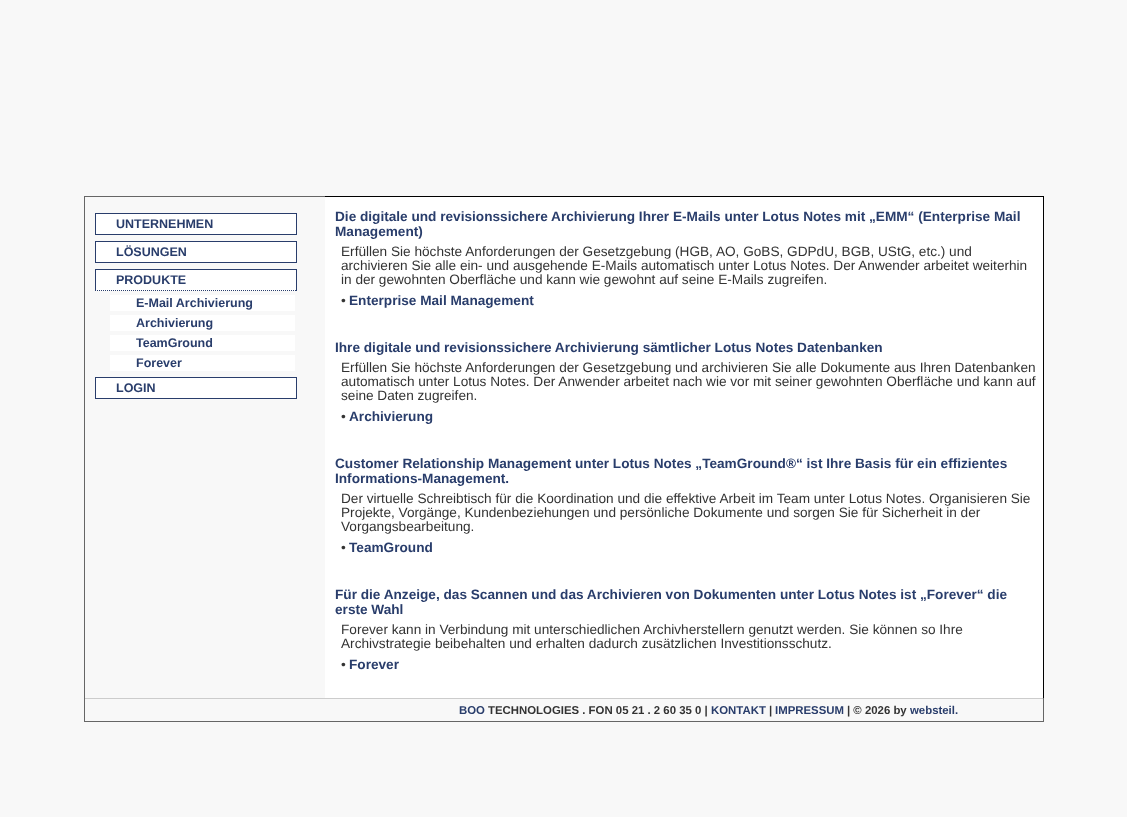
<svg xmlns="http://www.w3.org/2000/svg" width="1127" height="817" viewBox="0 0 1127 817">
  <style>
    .t1 { font: bold 12.5px Liberation Sans; fill: #293d6b; }
    .t2 { font: bold 13.63px Liberation Sans; fill: #293d6b; }
    .t3 { font: 13.63px Liberation Sans; fill: #333; }
    .t4 { font: bold 11.4px Liberation Sans; fill: #293d6b; }
    .t5 { font: bold 11.4px Liberation Sans; fill: #333; }
  </style>
  <rect width="100%" height="100%" fill="#f8f8f8"/>
  <rect x="85" y="196" width="240" height="1" fill="#666"/>
  <rect x="95.5" y="213.5" width="201" height="21" fill="#fff" stroke="#293d6b"/>
  <text x="116" y="228" class="t1">UNTERNEHMEN</text>
  <rect x="95.5" y="241.5" width="201" height="21" fill="#fff" stroke="#293d6b"/>
  <text x="116" y="256" class="t1">LÖSUNGEN</text>
  <rect x="96" y="270" width="200" height="21" fill="#fff"/>
  <rect x="95" y="269" width="202" height="1" fill="#293d6b"/>
  <rect x="296" y="269" width="1" height="22" fill="#293d6b"/>
  <path d="M95 290.5H297" fill="none" stroke="#293d6b" stroke-dasharray="1 1"/>
  <rect x="95" y="269" width="1" height="22" fill="#293d6b"/>
  <text x="116" y="284" class="t1">PRODUKTE</text>
  <rect x="110" y="295" width="185" height="16" fill="#fff"/>
  <text x="136" y="307" class="t1">E-Mail Archivierung</text>
  <rect x="110" y="315" width="185" height="16" fill="#fff"/>
  <text x="136" y="327" class="t1">Archivierung</text>
  <rect x="110" y="335" width="185" height="16" fill="#fff"/>
  <text x="136" y="347" class="t1">TeamGround</text>
  <rect x="110" y="355" width="185" height="16" fill="#fff"/>
  <text x="136" y="367" class="t1">Forever</text>
  <rect x="95.5" y="377.5" width="201" height="21" fill="#fff" stroke="#293d6b"/>
  <text x="116" y="392" class="t1">LOGIN</text>
  <rect x="325" y="197" width="718" height="501" fill="#fff"/>
  <rect x="325" y="196" width="719" height="1" fill="#000"/>
  <rect x="1043" y="196" width="1" height="502" fill="#000"/>
  <text x="335" y="221" class="t2">Die digitale und revisionssichere Archivierung Ihrer E-Mails unter Lotus Notes mit „EMM“ (Enterprise Mail</text>
  <text x="335" y="236" class="t2">Management)</text>
  <text x="341" y="256" class="t3">Erfüllen Sie höchste Anforderungen der Gesetzgebung (HGB, AO, GoBS, GDPdU, BGB, UStG, etc.) und</text>
  <text x="341" y="270" class="t3">archivieren Sie alle ein- und ausgehende E-Mails automatisch unter Lotus Notes. Der Anwender arbeitet weiterhin</text>
  <text x="341" y="284" class="t3">in der gewohnten Oberfläche und kann wie gewohnt auf seine E-Mails zugreifen.</text>
  <text x="341" y="305" class="t3">•</text>
  <text x="349" y="305" class="t2">Enterprise Mail Management</text>
  <text x="335" y="352" class="t2">Ihre digitale und revisionssichere Archivierung sämtlicher Lotus Notes Datenbanken</text>
  <text x="341" y="372" class="t3">Erfüllen Sie höchste Anforderungen der Gesetzgebung und archivieren Sie alle Dokumente aus Ihren Datenbanken</text>
  <text x="341" y="386" class="t3">automatisch unter Lotus Notes. Der Anwender arbeitet nach wie vor mit seiner gewohnten Oberfläche und kann auf</text>
  <text x="341" y="400" class="t3">seine Daten zugreifen.</text>
  <text x="341" y="421" class="t3">•</text>
  <text x="349" y="421" class="t2">Archivierung</text>
  <text x="335" y="468" class="t2">Customer Relationship Management unter Lotus Notes „TeamGround®“ ist Ihre Basis für ein effizientes</text>
  <text x="335" y="483" class="t2">Informations-Management.</text>
  <text x="341" y="503" class="t3">Der virtuelle Schreibtisch für die Koordination und die effektive Arbeit im Team unter Lotus Notes. Organisieren Sie</text>
  <text x="341" y="517" class="t3">Projekte, Vorgänge, Kundenbeziehungen und persönliche Dokumente und sorgen Sie für Sicherheit in der</text>
  <text x="341" y="531" class="t3">Vorgangsbearbeitung.</text>
  <text x="341" y="552" class="t3">•</text>
  <text x="349" y="552" class="t2">TeamGround</text>
  <text x="335" y="599" class="t2">Für die Anzeige, das Scannen und das Archivieren von Dokumenten unter Lotus Notes ist „Forever“ die</text>
  <text x="335" y="614" class="t2">erste Wahl</text>
  <text x="341" y="634" class="t3">Forever kann in Verbindung mit unterschiedlichen Archivherstellern genutzt werden. Sie können so Ihre</text>
  <text x="341" y="648" class="t3">Archivstrategie beibehalten und erhalten dadurch zusätzlichen Investitionsschutz.</text>
  <text x="341" y="669" class="t3">•</text>
  <text x="349" y="669" class="t2">Forever</text>
  <rect x="84" y="698" width="960" height="1" fill="#ccc"/>
  <rect x="1043" y="698" width="1" height="24" fill="#666"/>
  <rect x="84" y="721" width="960" height="1" fill="#666"/>
  <rect x="84" y="196" width="1" height="526" fill="#666"/>
  <text x="459" y="714" class="t4">BOO</text>
  <text x="488" y="714" class="t5">TECHNOLOGIES . FON 05 21 . 2 60 35 0 |</text>
  <text x="711" y="714" class="t4">KONTAKT</text>
  <text x="769" y="714" class="t5">|</text>
  <text x="775" y="714" class="t4">IMPRESSUM</text>
  <text x="847" y="714" class="t5">| © 2026 by</text>
  <text x="910" y="714" class="t4">websteil.</text>
</svg>
